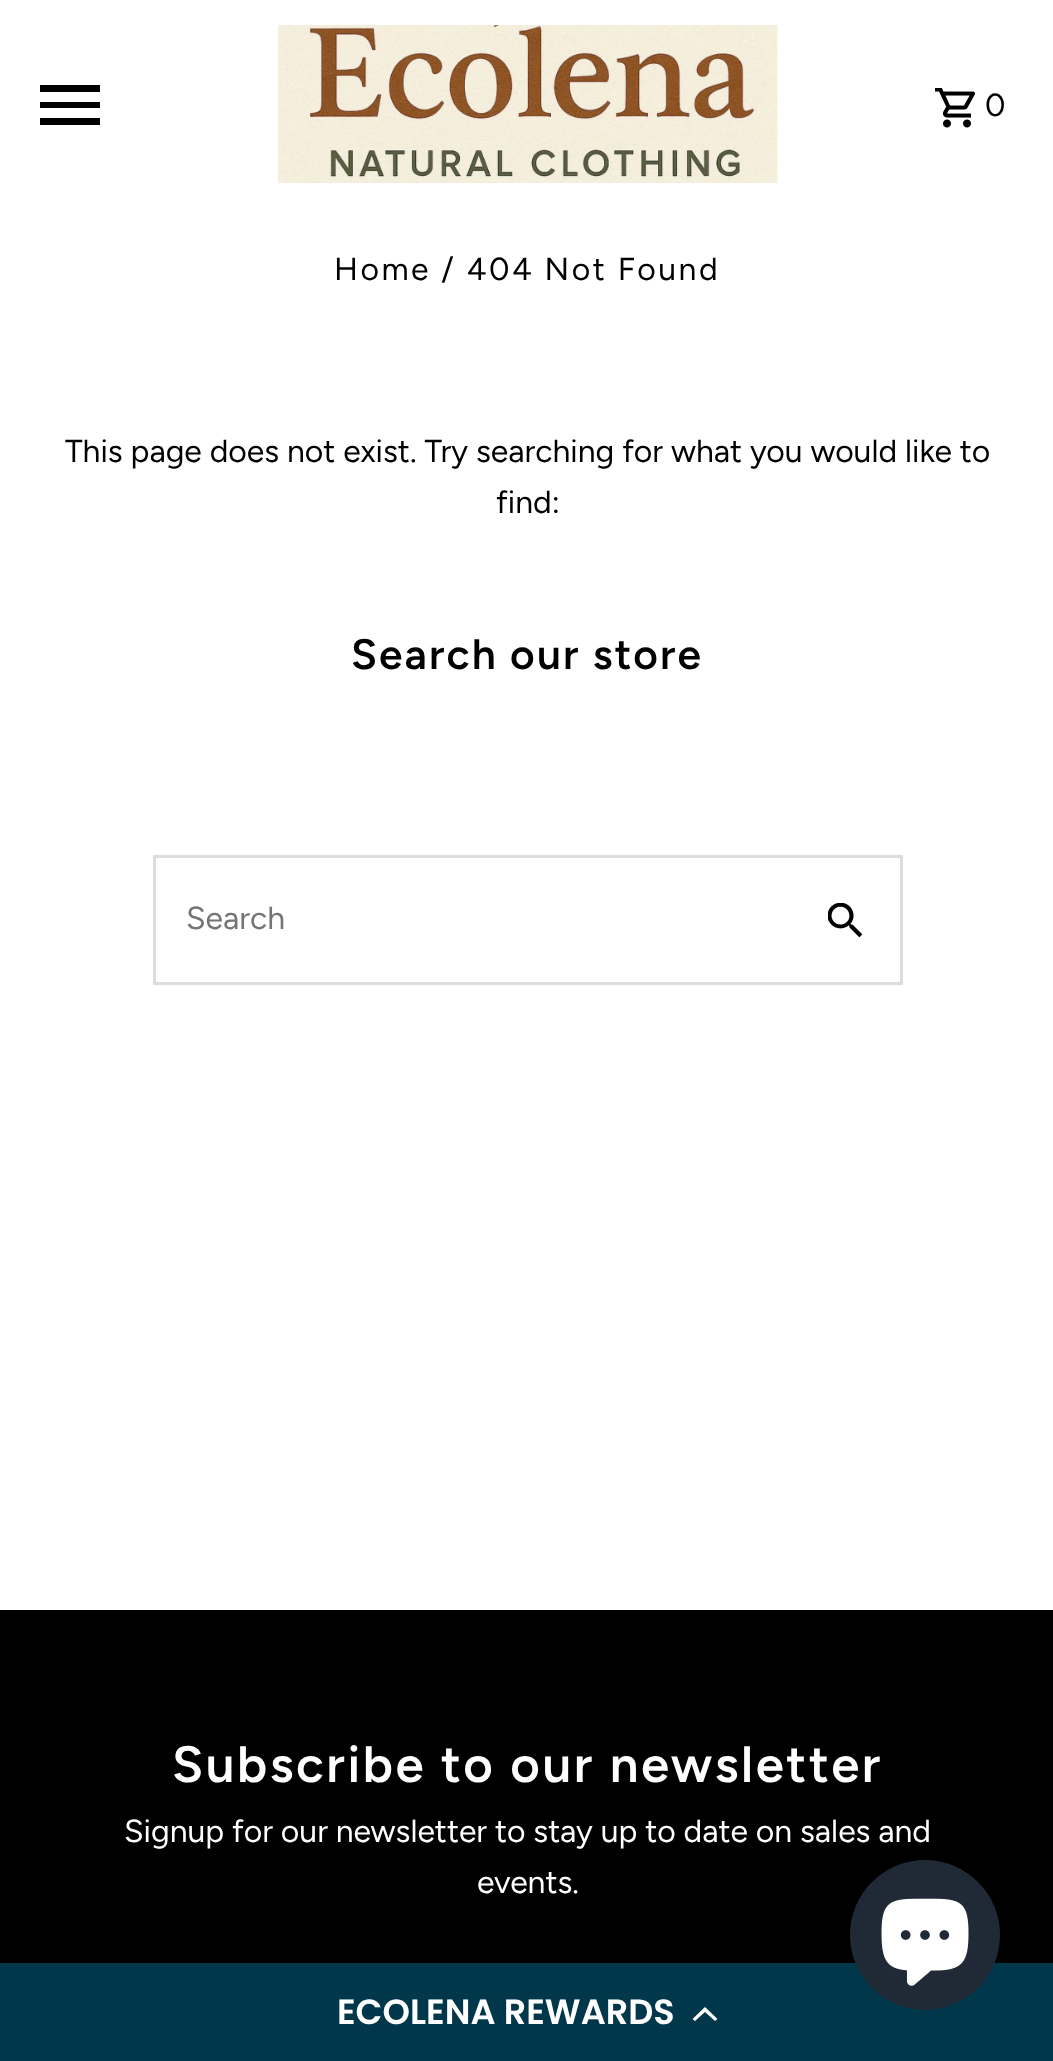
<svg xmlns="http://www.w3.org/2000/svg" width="1053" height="2061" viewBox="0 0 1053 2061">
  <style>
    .t1 { font: 31.9px Figtree; letter-spacing: 2.5px; fill: #000; }
    .t2 { font: 31.9px Figtree; fill: #000; }
    .t3 { font: 600 42.5px Figtree; letter-spacing: 2.1px; fill: #000; }
    .t4 { font: 31.9px Figtree; fill: #757575; }
    .t5 { font: 600 51px Figtree; letter-spacing: 2.55px; fill: #fff; }
    .t6 { font: 31.9px Figtree; fill: #fff; }
    .t7 { font: 600 35px Poppins; fill: #fff; }
  </style>
  <rect width="100%" height="100%" fill="#fff"/>
  <rect x="40" y="118" width="60" height="7" fill="#000"/>
  <rect x="40" y="102" width="60" height="6" fill="#000"/>
  <rect x="40" y="85" width="60" height="7" fill="#000"/>
  <image x="278" y="25" width="500" height="158" href="images/1.png"/>
  <image x="935" y="88" width="40" height="40" href="images/2.png"/>
  <text x="985" y="116" class="t1">0</text>
  <text x="334" y="280" class="t1">Home / 404 Not Found</text>
  <text x="65" y="462" class="t2">This page does not exist. Try searching for what you would like to</text>
  <text x="496" y="513" class="t2">find:</text>
  <text x="351" y="669" class="t3">Search our store</text>
  <rect x="154.5" y="856.5" width="747" height="127" fill="none" stroke="#ddd" stroke-width="3"/>
  <text x="186" y="929" class="t4">Search</text>
  <image x="828" y="903" width="35" height="35" href="images/3.png"/>
  <rect x="0" y="1610" width="1053" height="353" fill="#000"/>
  <text x="172" y="1782" class="t5">Subscribe to our newsletter</text>
  <text x="124" y="1842" class="t6">Signup for our newsletter to stay up to date on sales and</text>
  <text x="477" y="1893" class="t6">events.</text>
  <rect x="0" y="1963" width="1053" height="98" fill="#00374a"/>
  <text x="337" y="2024" class="t7">ECOLENA REWARDS</text>
  <path d="M705 2012L695 2021L692.5 2019L705 2007L717.5 2019L715 2021Z" fill="#fff"/>
  <circle cx="925" cy="1935" r="75" fill="#202a36"/>
  <image x="881" y="1898" width="88" height="88" href="images/4.png"/>
</svg>
